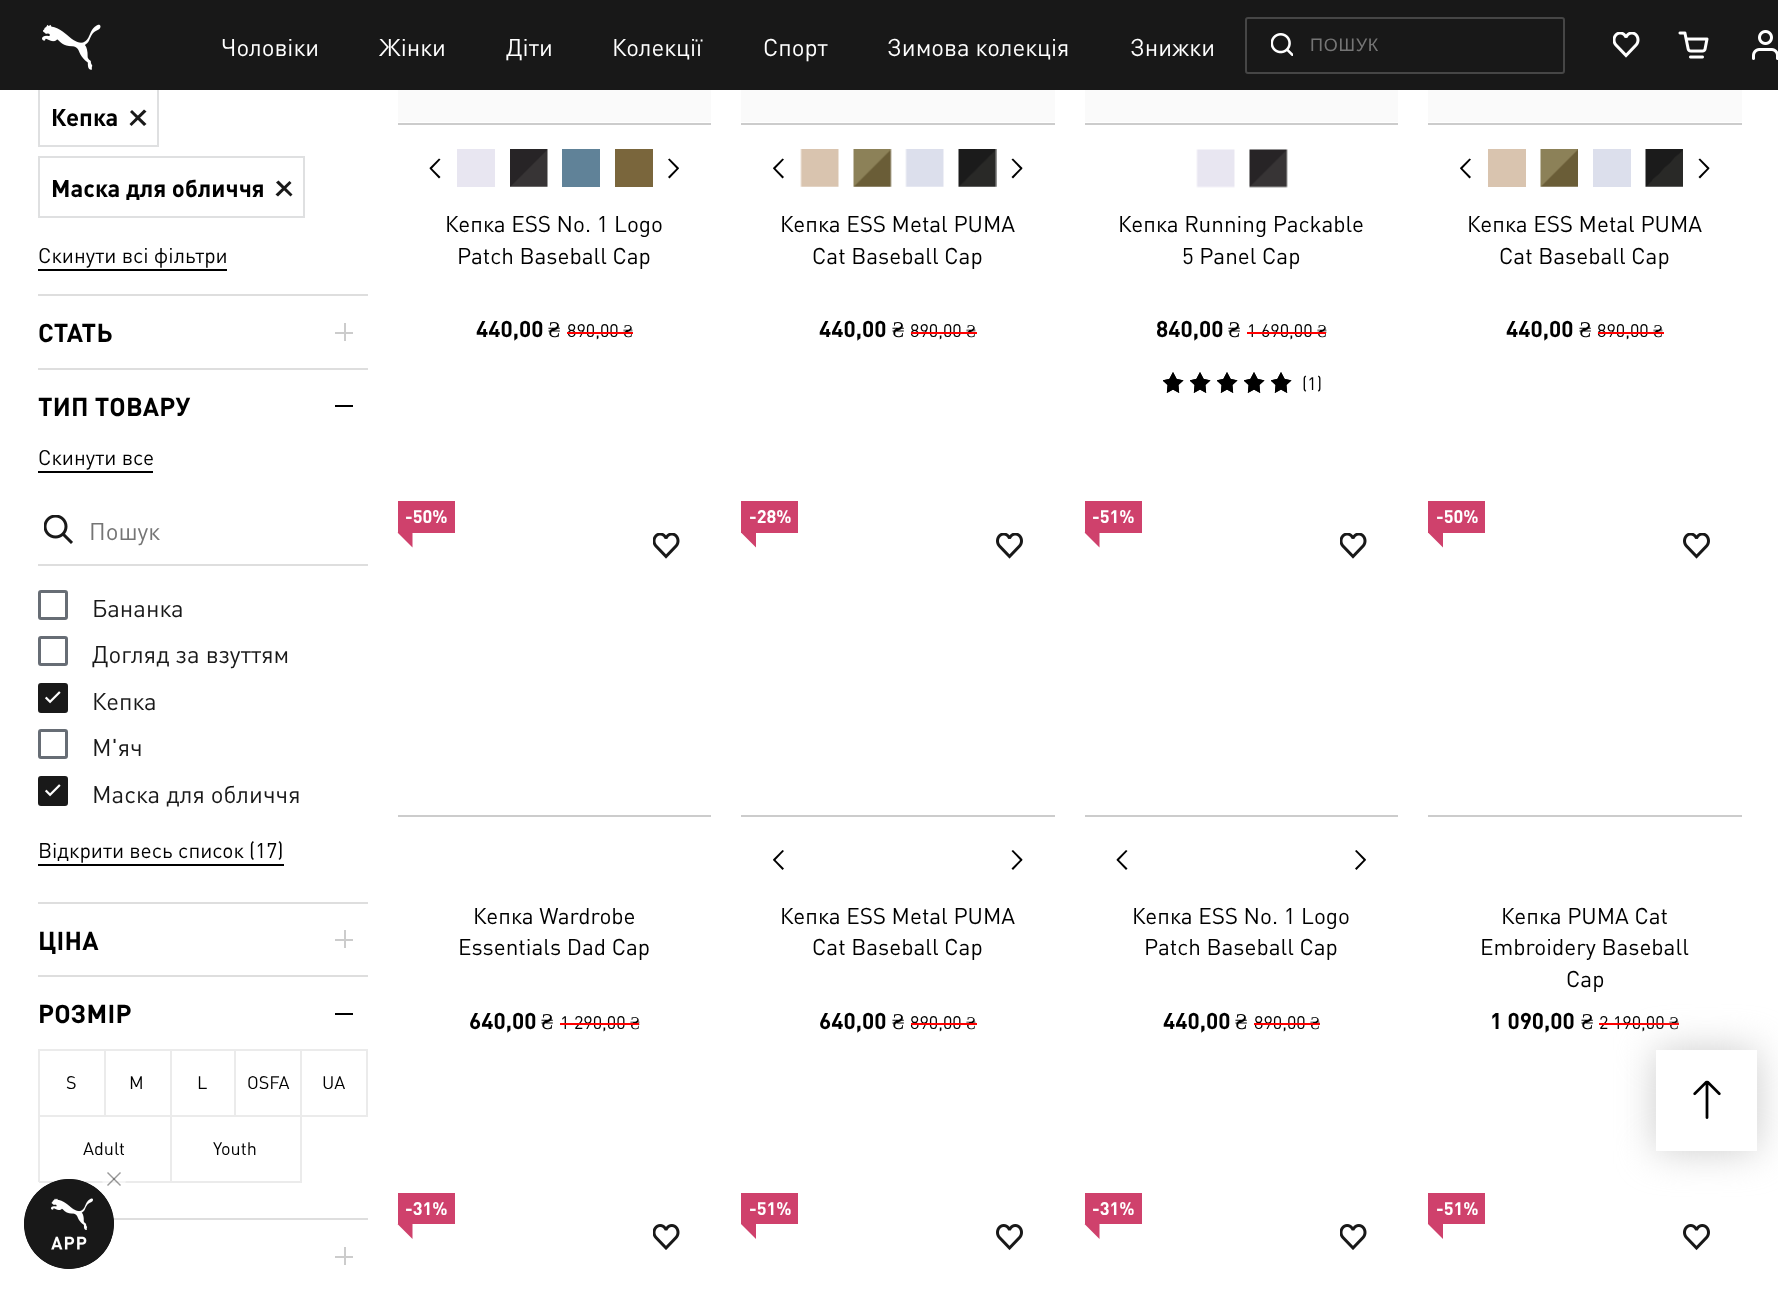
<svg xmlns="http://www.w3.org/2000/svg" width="1778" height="1292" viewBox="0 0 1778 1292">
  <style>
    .t1 { font: 24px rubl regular; fill: #fff; }
    .t2 { font: 18px Liberation Sans; letter-spacing: 0.75px; fill: #757575; }
    .t3 { font: bold 24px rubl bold; fill: #000; }
    .t4 { font: 21px rubl regular; fill: #000; }
    .t5 { font: bold 25.5px rubl bold; letter-spacing: 0.25px; fill: #000; }
    .t6 { font: 24px rubl regular; fill: #757575; }
    .t7 { font: 24px rubl regular; fill: #191919; }
    .t8 { font: 18px rubl regular; fill: #000; }
    .t9 { font: 22.5px rubl regular; fill: #000; }
    .t10 { font: bold 22.5px rubl bold; fill: #000; }
    .t11 { font: 22.5px Liberation Serif; fill: #000; }
    .t12 { font: 18px Liberation Serif; fill: #000; }
    .t13 { font: bold 18px rubl bold; fill: #fff; }
  </style>
  <rect width="100%" height="100%" fill="#fff"/>
  <rect x="39" y="87" width="119" height="59" fill="none" stroke="#dfe0e1" stroke-width="2"/>
  <rect x="0" y="0" width="1778" height="90" fill="#181818"/>
  <image x="42" y="24" width="59" height="46" href="images/1.png"/>
  <text x="221" y="56" class="t1">Чоловіки</text>
  <text x="379" y="56" class="t1">Жінки</text>
  <text x="506" y="56" class="t1">Діти</text>
  <text x="612" y="56" class="t1">Колекції</text>
  <text x="763" y="56" class="t1">Спорт</text>
  <text x="887" y="56" class="t1">Зимова колекція</text>
  <text x="1130" y="56" class="t1">Знижки</text>
  <rect x="1246" y="18" width="318" height="55" rx="2" fill="none" stroke="#464646" stroke-width="2"/>
  <image x="1271" y="33" width="22" height="23" href="images/2.png"/>
  <text x="1310" y="51" class="t2">ПОШУК</text>
  <image x="1613" y="32" width="27" height="26" href="images/3.png"/>
  <image x="1678" y="31" width="31" height="28" href="images/4.png"/>
  <image x="1752" y="30" width="26" height="30" href="images/5.png"/>
  <text x="51" y="126" class="t3">Кепка</text>
  <path d="M129.5 124L144 109.5L146.5 111.5L131.5 126Z" fill="#191919"/>
  <path d="M132 110L146.5 124L144 126L130 112Z" fill="#191919"/>
  <rect x="39" y="157" width="265" height="60" fill="none" stroke="#dfe0e1" stroke-width="2"/>
  <text x="51" y="197" class="t3">Маска для обличчя</text>
  <path d="M275.5 194.5L289.5 181L291.5 183L278 196.5Z" fill="#191919"/>
  <path d="M276 182.5L278.5 180.5L292.5 194.5L290.5 196.5Z" fill="#191919"/>
  <rect x="38" y="269" width="189" height="2" fill="#000"/>
  <text x="38" y="263" class="t4">Скинути всі фільтри</text>
  <rect x="38" y="294" width="330" height="2" fill="#dedede"/>
  <text x="38" y="342" class="t5">СТАТЬ</text>
  <rect x="335" y="332" width="18" height="2" fill="#ccc"/>
  <rect x="344" y="323" width="2" height="18" fill="#ccc"/>
  <rect x="38" y="368" width="330" height="2" fill="#dedede"/>
  <text x="38" y="416" class="t5">ТИП ТОВАРУ</text>
  <rect x="335" y="405" width="18" height="2" fill="#000"/>
  <text x="38" y="465" class="t4">Скинути все</text>
  <rect x="38" y="471" width="115" height="2" fill="#000"/>
  <rect x="38" y="564" width="330" height="2" fill="#dedede"/>
  <image x="44" y="515" width="29" height="29" href="images/6.png"/>
  <text x="89" y="540" class="t6">Пошук</text>
  <rect x="39.5" y="591.5" width="27" height="27" rx="1.5" fill="none" stroke="#676d75" stroke-width="3"/>
  <text x="92" y="617" class="t7">Бананка</text>
  <rect x="39.5" y="637.5" width="27" height="27" rx="1.5" fill="none" stroke="#676d75" stroke-width="3"/>
  <text x="92" y="663" class="t7">Догляд за взуттям</text>
  <rect x="39.5" y="684.5" width="27" height="27" rx="1.5" fill="#191919" stroke="#191919" stroke-width="3"/>
  <image x="45" y="691" width="16" height="13" href="images/7.png"/>
  <text x="92" y="710" class="t7">Кепка</text>
  <rect x="39.5" y="730.5" width="27" height="27" rx="1.5" fill="none" stroke="#676d75" stroke-width="3"/>
  <text x="92" y="756" class="t7">М'яч</text>
  <rect x="39.5" y="777.5" width="27" height="27" rx="1.5" fill="#191919" stroke="#191919" stroke-width="3"/>
  <image x="45" y="784" width="16" height="13" href="images/7.png"/>
  <text x="92" y="803" class="t7">Маска для обличчя</text>
  <rect x="38" y="864" width="246" height="2" fill="#000"/>
  <text x="38" y="858" class="t4">Відкрити весь список (17)</text>
  <rect x="38" y="902" width="330" height="2" fill="#dedede"/>
  <text x="38" y="950" class="t5">ЦІНА</text>
  <rect x="335" y="939" width="18" height="2" fill="#ccc"/>
  <rect x="344" y="930" width="2" height="18" fill="#ccc"/>
  <rect x="38" y="975" width="330" height="2" fill="#dedede"/>
  <text x="38" y="1023" class="t5">РОЗМІР</text>
  <rect x="335" y="1013" width="18" height="2" fill="#000"/>
  <rect x="38" y="1049" width="2" height="133" fill="#ebebeb"/>
  <rect x="39" y="1049" width="66" height="2" fill="#ebebeb"/>
  <rect x="104" y="1049" width="2" height="67" fill="#ebebeb"/>
  <rect x="39" y="1115" width="66" height="2" fill="#ebebeb"/>
  <text x="66" y="1089" class="t8">S</text>
  <rect x="105" y="1049" width="66" height="2" fill="#ebebeb"/>
  <rect x="170" y="1049" width="2" height="67" fill="#ebebeb"/>
  <rect x="105" y="1115" width="66" height="2" fill="#ebebeb"/>
  <text x="129" y="1089" class="t8">M</text>
  <rect x="171" y="1049" width="197" height="2" fill="#ebebeb"/>
  <rect x="234" y="1049" width="2" height="67" fill="#ebebeb"/>
  <rect x="171" y="1115" width="65" height="2" fill="#ebebeb"/>
  <text x="197" y="1089" class="t8">L</text>
  <rect x="300" y="1049" width="2" height="67" fill="#ebebeb"/>
  <rect x="236" y="1115" width="66" height="2" fill="#ebebeb"/>
  <text x="247" y="1089" class="t8">OSFA</text>
  <rect x="366" y="1049" width="2" height="67" fill="#ebebeb"/>
  <rect x="302" y="1115" width="66" height="2" fill="#ebebeb"/>
  <text x="322" y="1089" class="t8">UA</text>
  <rect x="170" y="1116" width="2" height="66" fill="#ebebeb"/>
  <rect x="39" y="1181" width="132" height="2" fill="#ebebeb"/>
  <text x="83" y="1155" class="t8">Adult</text>
  <rect x="300" y="1116" width="2" height="66" fill="#ebebeb"/>
  <rect x="171" y="1181" width="131" height="2" fill="#ebebeb"/>
  <text x="213" y="1155" class="t8">Youth</text>
  <rect x="113" y="1218" width="255" height="2" fill="#dedede"/>
  <rect x="335" y="1256" width="18" height="2" fill="#ccc"/>
  <rect x="344" y="1247" width="2" height="18" fill="#ccc"/>
  <rect x="398" y="123" width="313" height="2" fill="#ccc"/>
  <image x="398" y="90" width="313" height="32" href="images/8.png"/>
  <path d="M439 158.5L440.5 159.5L431 169.5L429.5 168Z" fill="#000"/>
  <path d="M429.5 168.5L431 167.5L440.5 177L439 178.5Z" fill="#000"/>
  <rect x="457" y="149" width="38" height="38" fill="#e8e6f1"/>
  <image x="510" y="149" width="38" height="38" href="images/9.png"/>
  <rect x="562" y="149" width="38" height="38" fill="#608298"/>
  <rect x="615" y="149" width="38" height="38" fill="#7a663c"/>
  <path d="M669.5 178.5L668 177L677.5 167.5L679 168.5Z" fill="#000"/>
  <path d="M679 168L677.5 169.5L668 159.5L669.5 158.5Z" fill="#000"/>
  <text x="445" y="232" class="t9">Кепка ESS No. 1 Logo</text>
  <text x="457" y="264" class="t9">Patch Baseball Cap</text>
  <text x="476" y="337" class="t10">440,00</text>
  <text x="548" y="337" class="t11">₴</text>
  <text x="567" y="337" class="t8">890,00</text>
  <text x="623" y="337" class="t12">₴</text>
  <rect x="567" y="332" width="66" height="2" fill="#f00"/>
  <rect x="741" y="123" width="314" height="2" fill="#ccc"/>
  <image x="741" y="90" width="314" height="32" href="images/10.png"/>
  <path d="M782.5 158.5L784 159.5L774.5 169.5L773 168Z" fill="#000"/>
  <path d="M773 168.5L774.5 167.5L784 177L782.5 178.5Z" fill="#000"/>
  <image x="800" y="149" width="39" height="38" href="images/11.png"/>
  <image x="853" y="149" width="39" height="38" href="images/12.png"/>
  <image x="905" y="149" width="39" height="38" href="images/13.png"/>
  <image x="958" y="149" width="39" height="38" href="images/14.png"/>
  <path d="M1013 178.5L1011.5 177L1021 167.5L1022.5 168.5Z" fill="#000"/>
  <path d="M1022.5 168L1021 169.5L1011.5 159.5L1013 158.5Z" fill="#000"/>
  <text x="780" y="232" class="t9">Кепка ESS Metal PUMA</text>
  <text x="812" y="264" class="t9">Cat Baseball Cap</text>
  <text x="819" y="337" class="t10">440,00</text>
  <text x="892" y="337" class="t11">₴</text>
  <text x="910" y="337" class="t8">890,00</text>
  <text x="966" y="337" class="t12">₴</text>
  <rect x="911" y="332" width="66" height="2" fill="#f00"/>
  <rect x="1085" y="123" width="313" height="2" fill="#ccc"/>
  <image x="1085" y="90" width="313" height="32" href="images/8.png"/>
  <image x="1196" y="149" width="39" height="39" href="images/15.png"/>
  <image x="1249" y="149" width="39" height="39" href="images/16.png"/>
  <text x="1118" y="232" class="t9">Кепка Running Packable</text>
  <text x="1182" y="264" class="t9">5 Panel Cap</text>
  <text x="1156" y="337" class="t10">840,00</text>
  <text x="1228" y="337" class="t11">₴</text>
  <text x="1247" y="337" class="t8">1 690,00</text>
  <text x="1317" y="337" class="t12">₴</text>
  <rect x="1247" y="332" width="79" height="2" fill="#f00"/>
  <image x="1163" y="372" width="21" height="21" href="images/17.png"/>
  <image x="1190" y="372" width="21" height="21" href="images/17.png"/>
  <image x="1217" y="372" width="21" height="21" href="images/17.png"/>
  <image x="1244" y="372" width="21" height="21" href="images/17.png"/>
  <image x="1271" y="372" width="21" height="21" href="images/17.png"/>
  <image x="1163" y="372" width="21" height="21" href="images/18.png"/>
  <image x="1190" y="372" width="21" height="21" href="images/18.png"/>
  <image x="1217" y="372" width="21" height="21" href="images/18.png"/>
  <image x="1244" y="372" width="21" height="21" href="images/18.png"/>
  <image x="1271" y="372" width="21" height="21" href="images/18.png"/>
  <text x="1302" y="390" class="t8">(1)</text>
  <rect x="1428" y="123" width="314" height="2" fill="#ccc"/>
  <image x="1428" y="90" width="314" height="32" href="images/10.png"/>
  <path d="M1469.5 158.5L1471 159.5L1461.5 169.5L1460 168Z" fill="#000"/>
  <path d="M1460 168.5L1461.5 167.5L1471 177L1469.5 178.5Z" fill="#000"/>
  <rect x="1488" y="149" width="38" height="38" fill="#d9c4af"/>
  <image x="1540" y="149" width="38" height="38" href="images/19.png"/>
  <rect x="1593" y="149" width="38" height="38" fill="#dcdfec"/>
  <image x="1645" y="149" width="38" height="38" href="images/20.png"/>
  <path d="M1700 178.5L1698.5 177L1708 167.5L1709.5 168.5Z" fill="#000"/>
  <path d="M1709.5 168L1708 169.5L1698.5 159.5L1700 158.5Z" fill="#000"/>
  <text x="1467" y="232" class="t9">Кепка ESS Metal PUMA</text>
  <text x="1499" y="264" class="t9">Cat Baseball Cap</text>
  <text x="1506" y="337" class="t10">440,00</text>
  <text x="1579" y="337" class="t11">₴</text>
  <text x="1597" y="337" class="t8">890,00</text>
  <text x="1653" y="337" class="t12">₴</text>
  <rect x="1598" y="332" width="66" height="2" fill="#f00"/>
  <rect x="398" y="815" width="313" height="2" fill="#ccc"/>
  <rect x="398" y="501" width="57" height="32" fill="#cf416c"/>
  <text x="405" y="523" class="t13">-50%</text>
  <path d="M412.5 532.5V547.5L397.5 532.5Z" fill="#cf416c"/>
  <image x="653" y="533" width="27" height="26" href="images/21.png"/>
  <text x="473" y="924" class="t9">Кепка Wardrobe</text>
  <text x="458" y="955" class="t9">Essentials Dad Cap</text>
  <text x="469" y="1029" class="t10">640,00</text>
  <text x="541" y="1029" class="t11">₴</text>
  <text x="560" y="1029" class="t8">1 290,00</text>
  <text x="630" y="1029" class="t12">₴</text>
  <rect x="560" y="1023" width="79" height="2" fill="#f00"/>
  <rect x="741" y="815" width="314" height="2" fill="#ccc"/>
  <rect x="741" y="501" width="57" height="32" fill="#cf416c"/>
  <text x="749" y="523" class="t13">-28%</text>
  <path d="M756 532.5V547.5L741 532.5Z" fill="#cf416c"/>
  <image x="996" y="533" width="27" height="26" href="images/22.png"/>
  <path d="M782.5 850L784 851L774.5 861L773 859.5Z" fill="#000"/>
  <path d="M773 860L774.5 859L784 868.5L782.5 870Z" fill="#000"/>
  <path d="M1013 870L1011.5 868.5L1021 859L1022.5 860Z" fill="#000"/>
  <path d="M1022.5 859.5L1021 861L1011.5 851L1013 850Z" fill="#000"/>
  <text x="780" y="924" class="t9">Кепка ESS Metal PUMA</text>
  <text x="812" y="955" class="t9">Cat Baseball Cap</text>
  <text x="819" y="1029" class="t10">640,00</text>
  <text x="892" y="1029" class="t11">₴</text>
  <text x="910" y="1029" class="t8">890,00</text>
  <text x="966" y="1029" class="t12">₴</text>
  <rect x="911" y="1023" width="66" height="2" fill="#f00"/>
  <rect x="1085" y="815" width="313" height="2" fill="#ccc"/>
  <rect x="1085" y="501" width="57" height="32" fill="#cf416c"/>
  <text x="1092" y="523" class="t13">-51%</text>
  <path d="M1099.5 532.5V547.5L1084.5 532.5Z" fill="#cf416c"/>
  <image x="1340" y="533" width="27" height="26" href="images/21.png"/>
  <path d="M1126 850L1127.5 851L1118 861L1116.5 859.5Z" fill="#000"/>
  <path d="M1116.5 860L1118 859L1127.5 868.5L1126 870Z" fill="#000"/>
  <path d="M1356.5 870L1355 868.5L1364.5 859L1366 860Z" fill="#000"/>
  <path d="M1366 859.5L1364.5 861L1355 851L1356.5 850Z" fill="#000"/>
  <text x="1132" y="924" class="t9">Кепка ESS No. 1 Logo</text>
  <text x="1144" y="955" class="t9">Patch Baseball Cap</text>
  <text x="1163" y="1029" class="t10">440,00</text>
  <text x="1235" y="1029" class="t11">₴</text>
  <text x="1254" y="1029" class="t8">890,00</text>
  <text x="1310" y="1029" class="t12">₴</text>
  <rect x="1254" y="1023" width="66" height="2" fill="#f00"/>
  <rect x="1428" y="815" width="314" height="2" fill="#ccc"/>
  <rect x="1428" y="501" width="57" height="32" fill="#cf416c"/>
  <text x="1436" y="523" class="t13">-50%</text>
  <path d="M1443 532.5V547.5L1428 532.5Z" fill="#cf416c"/>
  <image x="1683" y="533" width="27" height="26" href="images/22.png"/>
  <text x="1501" y="924" class="t9">Кепка PUMA Cat</text>
  <text x="1480" y="955" class="t9">Embroidery Baseball</text>
  <text x="1566" y="987" class="t9">Cap</text>
  <text x="1490" y="1029" class="t10">1 090,00</text>
  <text x="1581" y="1029" class="t11">₴</text>
  <text x="1599" y="1029" class="t8">2 190,00</text>
  <text x="1669" y="1029" class="t12">₴</text>
  <rect x="1599" y="1023" width="80" height="2" fill="#f00"/>
  <rect x="398" y="1193" width="57" height="31" fill="#cf416c"/>
  <text x="405" y="1215" class="t13">-31%</text>
  <path d="M412.5 1224V1239L397.5 1224Z" fill="#cf416c"/>
  <image x="653" y="1224" width="27" height="26" href="images/23.png"/>
  <rect x="741" y="1193" width="57" height="31" fill="#cf416c"/>
  <text x="749" y="1215" class="t13">-51%</text>
  <path d="M756 1224V1239L741 1224Z" fill="#cf416c"/>
  <image x="996" y="1224" width="27" height="27" href="images/24.png"/>
  <rect x="1085" y="1193" width="57" height="31" fill="#cf416c"/>
  <text x="1092" y="1215" class="t13">-31%</text>
  <path d="M1099.5 1224V1239L1084.5 1224Z" fill="#cf416c"/>
  <image x="1340" y="1224" width="27" height="26" href="images/23.png"/>
  <rect x="1428" y="1193" width="57" height="31" fill="#cf416c"/>
  <text x="1436" y="1215" class="t13">-51%</text>
  <path d="M1443 1224V1239L1428 1224Z" fill="#cf416c"/>
  <image x="1683" y="1224" width="27" height="27" href="images/24.png"/>
  <circle cx="69" cy="1224" r="45" fill="#181818"/>
  <image x="24" y="1179" width="90" height="90" href="images/25.png"/>
  <circle cx="114" cy="1179" r="12" fill="#ffffff80"/>
  <path d="M107 1185L120 1172L121 1173L108 1186Z" fill="#00000066"/>
  <path d="M108 1172L121 1185L120 1186L107 1173Z" fill="#00000066"/>
  <rect x="1656" y="1050" width="101" height="101" fill="#ccc" filter="blur(19px)"/>
  <rect x="1656" y="1050" width="101" height="101" fill="#fff"/>
  <image x="1693" y="1080" width="28" height="39" href="images/26.png"/>
</svg>
